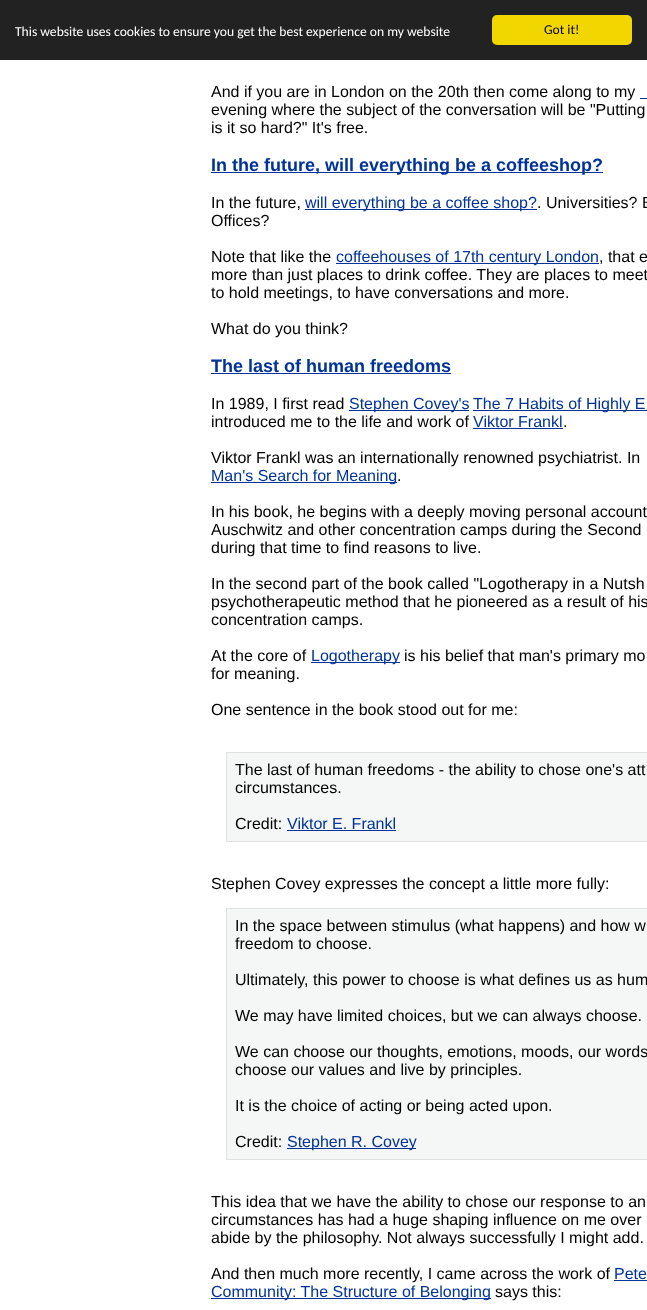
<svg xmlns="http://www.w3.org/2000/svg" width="647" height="1310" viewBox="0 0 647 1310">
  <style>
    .t1 { font: 13.6px Carlito; fill: #fff; }
    .t2 { font: 13.6px Carlito; fill: #000; }
    .t3 { font: 16px Liberation Sans; fill: #000; }
    .t4 { font: bold 18px Liberation Sans; fill: #039; }
    .t5 { font: 16px Liberation Sans; fill: #039; }
  </style>
  <rect width="100%" height="100%" fill="#fff"/>
  <rect x="0" y="0" width="647" height="60" fill="#222"/>
  <text x="15" y="36" class="t1">This website uses cookies to ensure you get the best experience on my website</text>
  <rect x="492" y="15" width="140" height="30" rx="5" fill="#f1d600"/>
  <text x="544" y="34" class="t2">Got it!</text>
  <text x="211" y="97" class="t3">And if you are in London on the 20th then come along to my</text>
  <rect x="640" y="98" width="7" height="1" fill="#039"/>
  <text x="211" y="115" class="t3">evening where the subject of the conversation will be "Putting</text>
  <text x="211" y="133" class="t3">is it so hard?" It's free.</text>
  <rect x="211" y="172" width="392" height="1" fill="#039"/>
  <text x="211" y="171" class="t4">In the future, will everything be a coffeeshop?</text>
  <text x="211" y="208" class="t3">In the future,</text>
  <rect x="305" y="209" width="232" height="1" fill="#039"/>
  <text x="305" y="208" class="t5">will everything be a coffee shop?</text>
  <text x="537" y="208" class="t3">. Universities? B</text>
  <text x="211" y="226" class="t3">Offices?</text>
  <text x="211" y="262" class="t3">Note that like the</text>
  <rect x="336" y="263" width="263" height="1" fill="#039"/>
  <text x="336" y="262" class="t5">coffeehouses of 17th century London</text>
  <text x="599" y="262" class="t3">, that e</text>
  <text x="211" y="280" class="t3">more than just places to drink coffee. They are places to meet</text>
  <text x="211" y="298" class="t3">to hold meetings, to have conversations and more.</text>
  <text x="211" y="334" class="t3">What do you think?</text>
  <text x="211" y="372" class="t4">The last of human freedoms</text>
  <rect x="211" y="373" width="240" height="1" fill="#039"/>
  <text x="211" y="409" class="t3">In 1989, I first read</text>
  <rect x="349" y="410" width="120" height="1" fill="#039"/>
  <text x="349" y="409" class="t5">Stephen Covey's</text>
  <rect x="473" y="410" width="174" height="1" fill="#039"/>
  <text x="473" y="409" class="t5">The 7 Habits of Highly E</text>
  <text x="211" y="427" class="t3">introduced me to the life and work of</text>
  <text x="473" y="427" class="t5">Viktor Frankl</text>
  <rect x="473" y="428" width="90" height="1" fill="#039"/>
  <text x="563" y="427" class="t3">.</text>
  <text x="211" y="463" class="t3">Viktor Frankl was an internationally renowned psychiatrist. In</text>
  <rect x="211" y="482" width="186" height="1" fill="#039"/>
  <text x="211" y="481" class="t5">Man's Search for Meaning</text>
  <text x="397" y="481" class="t3">.</text>
  <text x="211" y="517" class="t3">In his book, he begins with a deeply moving personal account</text>
  <text x="211" y="535" class="t3">Auschwitz and other concentration camps during the Second</text>
  <text x="211" y="553" class="t3">during that time to find reasons to live.</text>
  <text x="211" y="589" class="t3">In the second part of the book called "Logotherapy in a Nutsh</text>
  <text x="211" y="607" class="t3">psychotherapeutic method that he pioneered as a result of his</text>
  <text x="211" y="625" class="t3">concentration camps.</text>
  <text x="211" y="661" class="t3">At the core of</text>
  <rect x="311" y="662" width="89" height="1" fill="#039"/>
  <text x="311" y="661" class="t5">Logotherapy</text>
  <text x="404" y="661" class="t3">is his belief that man's primary mo</text>
  <text x="211" y="679" class="t3">for meaning.</text>
  <text x="211" y="715" class="t3">One sentence in the book stood out for me:</text>
  <rect x="226.5" y="752.5" width="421" height="89" fill="#f5f6f6" stroke="#dfe0e0"/>
  <text x="235" y="775" class="t3">The last of human freedoms - the ability to chose one's att</text>
  <text x="235" y="793" class="t3">circumstances.</text>
  <text x="235" y="829" class="t3">Credit:</text>
  <text x="287" y="829" class="t5">Viktor E. Frankl</text>
  <rect x="287" y="830" width="109" height="1" fill="#039"/>
  <text x="211" y="889" class="t3">Stephen Covey expresses the concept a little more fully:</text>
  <rect x="226.5" y="908.5" width="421" height="251" fill="#f5f6f6" stroke="#dfe0e0"/>
  <text x="235" y="931" class="t3">In the space between stimulus (what happens) and how w</text>
  <text x="235" y="949" class="t3">freedom to choose.</text>
  <text x="235" y="985" class="t3">Ultimately, this power to choose is what defines us as hum</text>
  <text x="235" y="1021" class="t3">We may have limited choices, but we can always choose.</text>
  <text x="235" y="1057" class="t3">We can choose our thoughts, emotions, moods, our words</text>
  <text x="235" y="1075" class="t3">choose our values and live by principles.</text>
  <text x="235" y="1111" class="t3">It is the choice of acting or being acted upon.</text>
  <text x="235" y="1147" class="t3">Credit:</text>
  <rect x="287" y="1148" width="129" height="1" fill="#039"/>
  <text x="287" y="1147" class="t5">Stephen R. Covey</text>
  <text x="211" y="1207" class="t3">This idea that we have the ability to chose our response to an</text>
  <text x="211" y="1225" class="t3">circumstances has had a huge shaping influence on me over</text>
  <text x="211" y="1243" class="t3">abide by the philosophy. Not always successfully I might add.</text>
  <text x="211" y="1279" class="t3">And then much more recently, I came across the work of</text>
  <text x="614" y="1279" class="t5">Pete</text>
  <rect x="614" y="1280" width="33" height="1" fill="#039"/>
  <rect x="211" y="1298" width="280" height="1" fill="#039"/>
  <text x="211" y="1297" class="t5">Community: The Structure of Belonging</text>
  <text x="495" y="1297" class="t3">says this:</text>
</svg>
